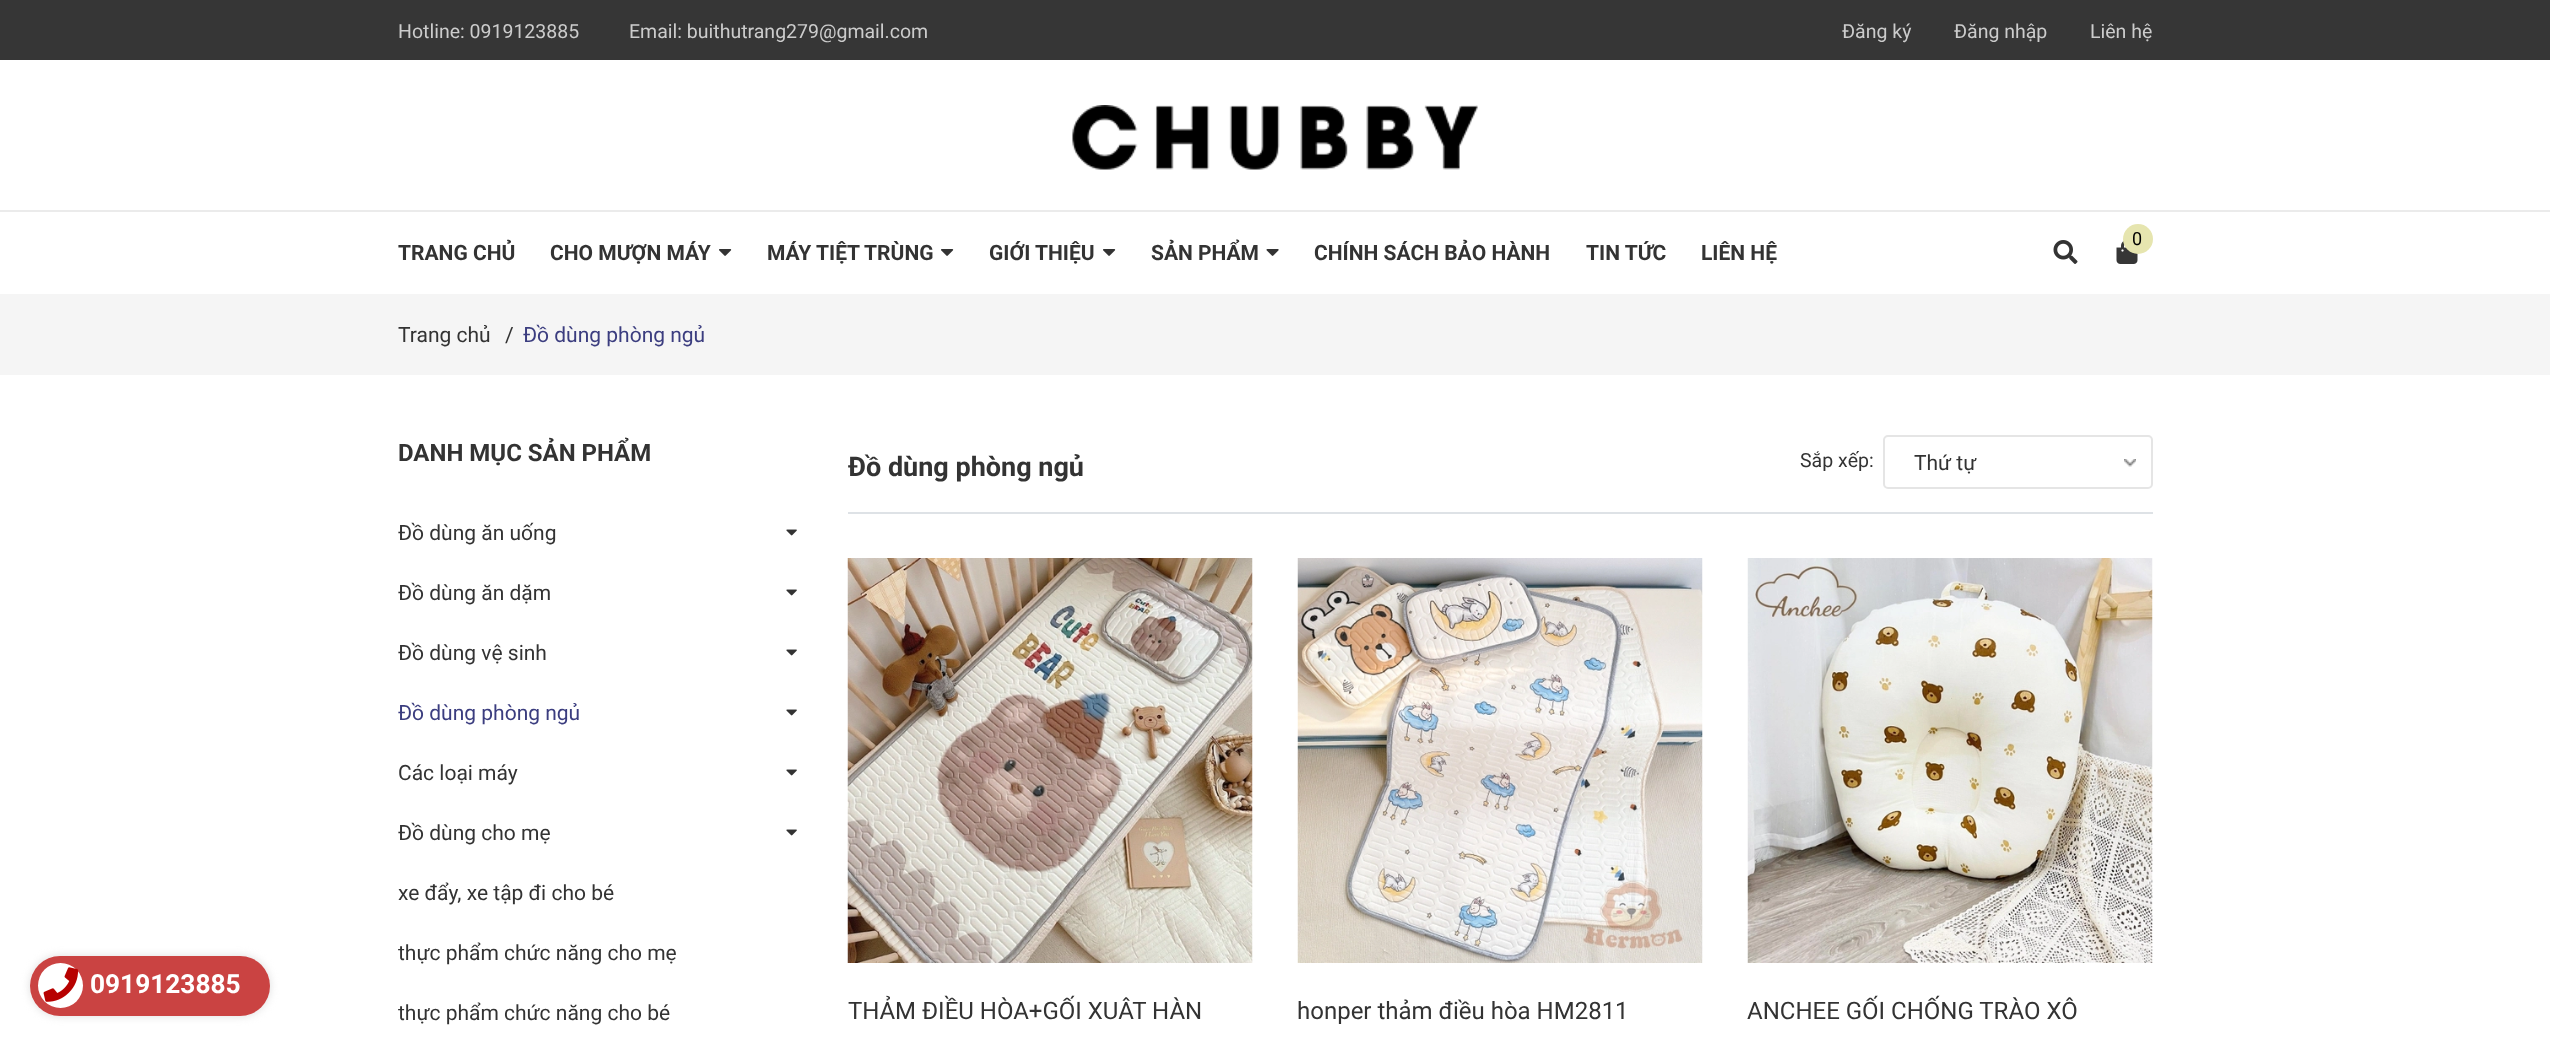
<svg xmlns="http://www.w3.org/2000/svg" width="2550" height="1045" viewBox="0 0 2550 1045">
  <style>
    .t1 { font: 19.5px Roboto; fill: #ccc; }
    .t2 { font: bold 21px Roboto; fill: #333; }
    .t3 { font: 18px Roboto; fill: #000; }
    .t4 { font: 21px Roboto; fill: #333; }
    .t5 { font: 21px Roboto; fill: #3b3d7f; }
    .t6 { font: bold 26.25px Roboto; fill: #fff; }
    .t7 { font: bold 24px Roboto; fill: #333; }
    .t8 { font: 19.5px Roboto; fill: #333; }
    .t9 { font: 24px Roboto; fill: #333; }
    .t10 { font: bold 27px Roboto; fill: #333; }
  </style>
  <defs>
    <clipPath id="clip1"><path d="M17 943H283V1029H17ZM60 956H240C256.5 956 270 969.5 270 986C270 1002.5 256.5 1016 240 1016H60C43.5 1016 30 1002.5 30 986C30 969.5 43.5 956 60 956Z" clip-rule="evenodd"/></clipPath>
  </defs>
  <rect width="100%" height="100%" fill="#fff"/>
  <rect x="0" y="0" width="2550" height="60" fill="#363636"/>
  <text x="398" y="38" class="t1">Hotline: 0919123885</text>
  <text x="629" y="38" class="t1">Email: buithutrang279@gmail.com</text>
  <text x="1842" y="38" class="t1">Đăng ký</text>
  <text x="1954" y="38" class="t1">Đăng nhập</text>
  <text x="2090" y="38" class="t1">Liên hệ</text>
  <image x="1072" y="105" width="406" height="65" href="images/1.png"/>
  <rect x="0" y="210" width="2550" height="2" fill="#ebebeb"/>
  <text x="398" y="260" class="t2">TRANG CHỦ</text>
  <text x="550" y="260" class="t2">CHO MƯỢN MÁY</text>
  <image x="719" y="249" width="13" height="7" href="images/2.png"/>
  <text x="767" y="260" class="t2">MÁY TIỆT TRÙNG</text>
  <image x="941" y="249" width="13" height="7" href="images/2.png"/>
  <text x="989" y="260" class="t2">GIỚI THIỆU</text>
  <image x="1103" y="249" width="13" height="7" href="images/2.png"/>
  <text x="1151" y="260" class="t2">SẢN PHẨM</text>
  <image x="1266" y="249" width="13" height="7" href="images/3.png"/>
  <text x="1314" y="260" class="t2">CHÍNH SÁCH BẢO HÀNH</text>
  <text x="1586" y="260" class="t2">TIN TỨC</text>
  <text x="1701" y="260" class="t2">LIÊN HỆ</text>
  <image x="2053" y="240" width="25" height="24" href="images/4.png"/>
  <image x="2116" y="240" width="22" height="24" href="images/5.png"/>
  <circle cx="2138" cy="239" r="15" fill="#e6e5af"/>
  <text x="2132" y="245" class="t3">0</text>
  <rect x="0" y="294" width="2550" height="81" fill="#f5f5f5"/>
  <text x="398" y="342" class="t4">Trang chủ</text>
  <text x="505" y="342" class="t4">/</text>
  <text x="523" y="342" class="t5">Đồ dùng phòng ngủ</text>
  <g clip-path="url(#clip1)">
    <rect x="30" y="956" width="240" height="60" rx="30" fill="#ddd" filter="blur(4px)"/>
  </g>
  <rect x="30" y="956" width="240" height="60" rx="30" fill="#b70100bd"/>
  <circle cx="60.5" cy="985.5" r="22.5" fill="#fff"/>
  <image x="43" y="967" width="35" height="35" href="images/6.png"/>
  <text x="90" y="993" class="t6">0919123885</text>
  <text x="398" y="461" class="t7">DANH MỤC SẢN PHẨM</text>
  <text x="398" y="540" class="t4">Đồ dùng ăn uống</text>
  <image x="786" y="529" width="11" height="7" href="images/7.png"/>
  <text x="398" y="600" class="t4">Đồ dùng ăn dặm</text>
  <image x="786" y="589" width="11" height="7" href="images/7.png"/>
  <text x="398" y="660" class="t4">Đồ dùng vệ sinh</text>
  <image x="786" y="649" width="11" height="7" href="images/7.png"/>
  <text x="398" y="720" class="t5">Đồ dùng phòng ngủ</text>
  <image x="786" y="709" width="11" height="7" href="images/7.png"/>
  <text x="398" y="780" class="t4">Các loại máy</text>
  <image x="786" y="769" width="11" height="7" href="images/7.png"/>
  <text x="398" y="840" class="t4">Đồ dùng cho mẹ</text>
  <image x="786" y="829" width="11" height="7" href="images/7.png"/>
  <text x="398" y="900" class="t4">xe đẩy, xe tập đi cho bé</text>
  <text x="398" y="960" class="t4">thực phẩm chức năng cho mẹ</text>
  <text x="398" y="1020" class="t4">thực phẩm chức năng cho bé</text>
  <rect x="848" y="512" width="1305" height="2" fill="#dee2e6"/>
  <text x="1800" y="467" class="t8">Sắp xếp:</text>
  <image x="2124" y="459" width="12" height="8" href="images/8.png"/>
  <rect x="1884" y="436" width="268" height="52" rx="4" fill="none" stroke="#e5e5e5" stroke-width="2"/>
  <text x="1914" y="470" class="t4">Thứ tự</text>
  <image x="847" y="558" width="406" height="405" href="images/9.png"/>
  <text x="848" y="1019" class="t9">THẢM ĐIỀU HÒA+GỐI XUÂT HÀN</text>
  <image x="1297" y="558" width="406" height="405" href="images/10.png"/>
  <text x="1297" y="1019" class="t9">honper thảm điều hòa HM2811</text>
  <image x="1747" y="558" width="406" height="405" href="images/11.png"/>
  <text x="1747" y="1019" class="t9">ANCHEE GỐI CHỐNG TRÀO XÔ</text>
  <text x="848" y="476" class="t10">Đồ dùng phòng ngủ</text>
</svg>
